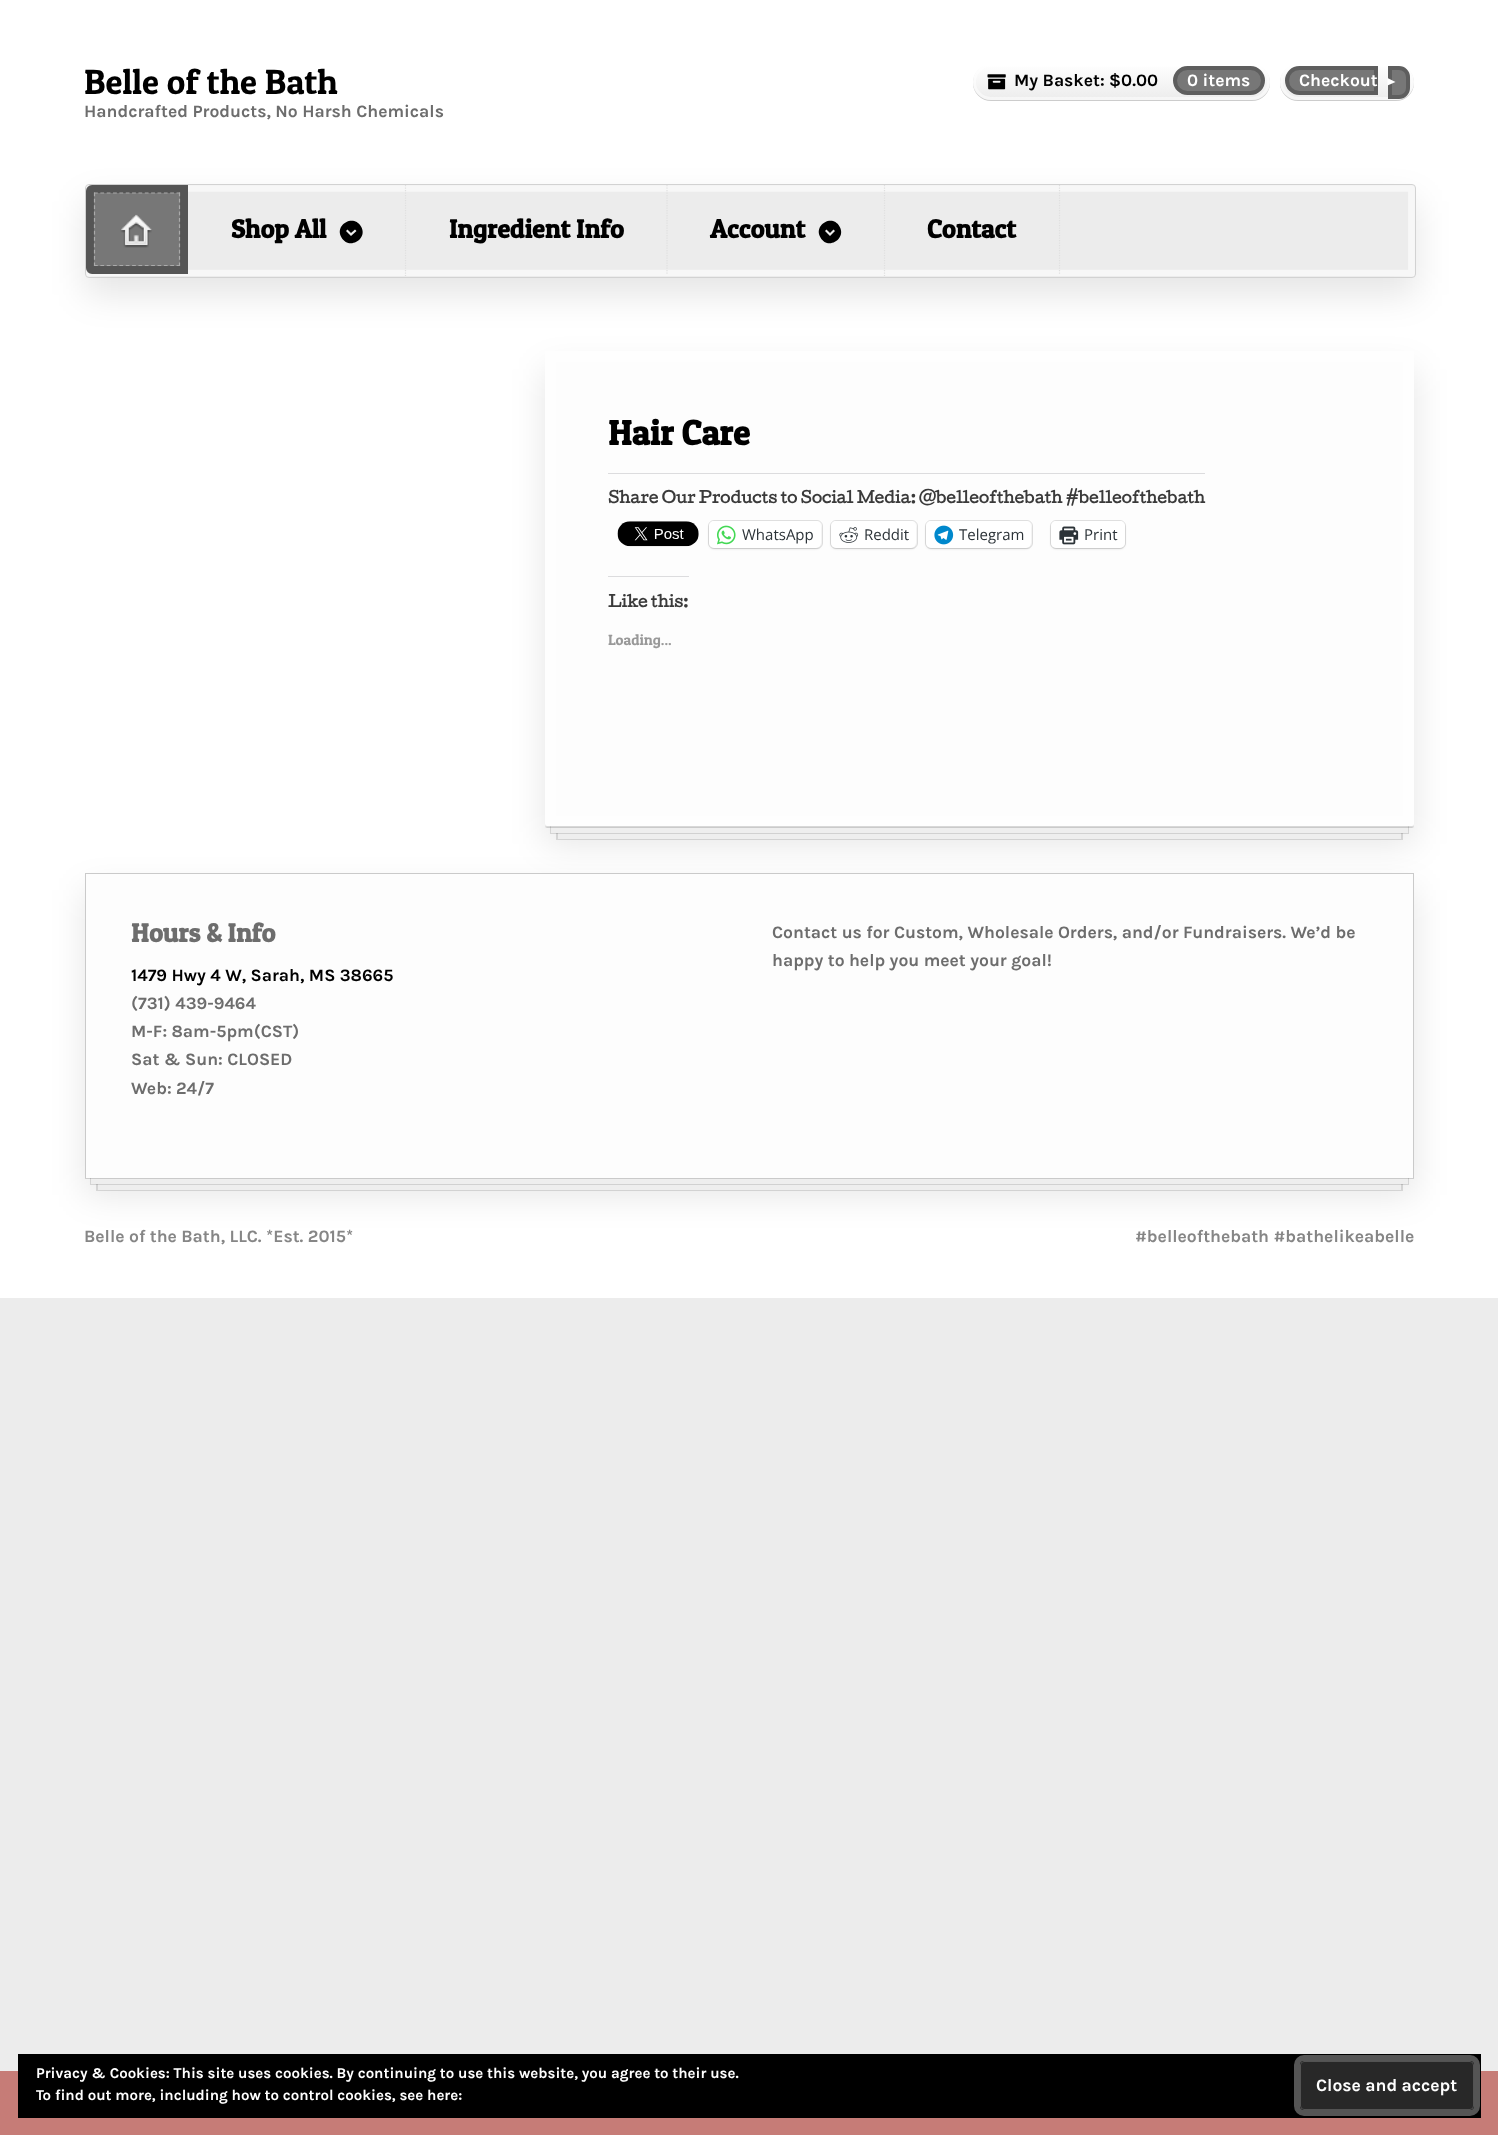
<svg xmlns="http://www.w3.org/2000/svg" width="1498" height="2135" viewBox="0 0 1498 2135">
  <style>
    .t1 { font: 35px Patua One; fill: #000; }
    .t2 { font: bold 17.5px Karla; fill: #6d6d6d; }
    .t3 { font: bold 17.5px Karla; fill: #000; }
    .t4 { font: bold 17.5px Karla; fill: #fff; }
    .t5 { font: bold 26.25px Patua One; fill: #000; }
    .t6 { font: bold 35px Patua One; fill: #000; }
    .t7 { font: bold 15px Cutive; fill: #3a3a3a; }
    .t8 { font: 15px Open Sans; fill: #2c3338; }
    .t9 { font: 15px Patua One; fill: #999; }
    .t10 { font: bold 26.25px Patua One; fill: #6d6d6d; }
    .t11 { font: bold 17.5px Karla; fill: #868686; }
    .t12 { font: bold 15px Karla; fill: #fff; }
  </style>
  <defs>
    <linearGradient id="g1" gradientUnits="userSpaceOnUse" x1="1121" y1="64" x2="1121" y2="100"><stop offset="0" stop-color="#fff"/><stop offset="1" stop-color="#ececec"/></linearGradient>
    <linearGradient id="g2" gradientUnits="userSpaceOnUse" x1="1347" y1="64" x2="1347" y2="100"><stop offset="0" stop-color="#fff"/><stop offset="1" stop-color="#ececec"/></linearGradient>
  </defs>
  <rect width="100%" height="100%" fill="#ececec"/>
  <rect x="0" y="0" width="1498" height="1298" fill="#fff"/>
  <text x="84" y="94" class="t1">Belle of the Bath</text>
  <text x="84" y="117" class="t2">Handcrafted Products, No Harsh Chemicals</text>
  <rect x="973" y="65" width="297" height="36" rx="18" fill="#00000033" filter="blur(0.5px)"/>
  <rect x="973" y="64" width="297" height="36" rx="18" fill="url(#g1)"/>
  <rect x="974.5" y="65.5" width="294" height="33" rx="16.5" fill="none" stroke="#ffffff80" stroke-width="3"/>
  <image x="987" y="74" width="19" height="16" href="images/1.png"/>
  <text x="1014" y="86" class="t3">My Basket: $0.00</text>
  <rect x="1175" y="68" width="88" height="25" rx="12.5" fill="#777" stroke="#5e5e5e" stroke-width="4"/>
  <text x="1187" y="86" class="t4">0 items</text>
  <rect x="1280" y="65" width="134" height="36" rx="18" fill="#00000033" filter="blur(0.5px)"/>
  <rect x="1280" y="64" width="134" height="36" rx="18" fill="url(#g2)"/>
  <rect x="1281.5" y="65.5" width="131" height="33" rx="16.5" fill="none" stroke="#ffffff80" stroke-width="3"/>
  <path d="M1299.5 68H1376V93H1299.5C1292.5 93 1287 87.5 1287 80.5C1287 73.5 1292.5 68 1299.5 68Z" fill="#777" stroke="#5e5e5e" stroke-width="4"/>
  <path d="M1390 68H1399C1404 68 1408 72 1408 77V88C1408 93 1404 97 1399 97H1390Z" fill="#777" stroke="#5e5e5e" stroke-width="4"/>
  <text x="1299" y="86" class="t4">Checkout</text>
  <path d="M1395.5 82L1387.5 85.5V78Z" fill="#fff"/>
  <rect x="85" y="201" width="1331" height="94" rx="4" fill="#0000001a" filter="blur(17.5px)"/>
  <rect x="86" y="185" width="1329" height="91" rx="3" fill="#ececec"/>
  <path d="M89.5 188.5H1411.5V273H89.5Z" fill="none" stroke="#ffffff99" stroke-width="6.7"/>
  <rect x="85.5" y="184.5" width="1330" height="93" rx="3.5" fill="none" stroke="#d2d2d2"/>
  <path d="M92 189H184V270H92C91 270 90 269 90 268V191C90 190 91 189 92 189Z" fill="none" stroke="#555" stroke-width="8"/>
  <rect x="94" y="193" width="86" height="73" fill="#777"/>
  <image x="120" y="214" width="32" height="34" href="images/2.png"/>
  <path d="M94 193H180" fill="none" stroke="#aaa" stroke-width="1.2" stroke-dasharray="3.75 2.6"/>
  <path d="M179.5 192.5V266" fill="none" stroke="#aaa" stroke-width="1.2" stroke-dasharray="3.75 2.61"/>
  <path d="M94 265.5H180" fill="none" stroke="#aaa" stroke-width="1.2" stroke-dasharray="3.75 2.6"/>
  <path d="M94.5 192.5V266" fill="none" stroke="#aaa" stroke-width="1.2" stroke-dasharray="3.75 2.61"/>
  <path d="M405.5 185V276" fill="none" stroke="#dfdfdf" stroke-width="1.2" stroke-dasharray="1.25 1.25"/>
  <text x="231" y="238" class="t5">Shop All</text>
  <path d="M351 236L356.5 231L355 229.5L351 233L347.5 229.5L346 231ZM361 226.5C368.5 239 349 250.5 341.5 237.5C334 225 353.5 213.5 361 226.5Z" fill="#000"/>
  <path d="M667 185V274" fill="none" stroke="#dfdfdf" stroke-width="1.2" stroke-dasharray="1.25 1.25"/>
  <text x="449" y="238" class="t5">Ingredient Info</text>
  <path d="M884.5 185V276" fill="none" stroke="#dfdfdf" stroke-width="1.2" stroke-dasharray="1.25 1.25"/>
  <text x="710" y="238" class="t5">Account</text>
  <path d="M830 236L835 231L833.5 229.5L830 233L826.5 229.5L825 231ZM839.5 226.5C847 239 827.5 250.5 820.5 237.5C813 225 832.5 213.5 839.5 226.5Z" fill="#000"/>
  <path d="M1059.5 185V274" fill="none" stroke="#dfdfdf" stroke-width="1.2" stroke-dasharray="1.25 1.25"/>
  <text x="927" y="238" class="t5">Contact</text>
  <rect x="545" y="369" width="869" height="475" rx="2.5" fill="#0000001a" filter="blur(17.5px)"/>
  <rect x="556" y="388" width="847" height="452" fill="#0000001f" filter="blur(0.5px)"/>
  <rect x="558" y="833" width="843" height="6" fill="#eee"/>
  <rect x="550" y="369" width="859" height="465" fill="#0000001f" filter="blur(0.5px)"/>
  <rect x="551" y="826" width="857" height="7" fill="#eee"/>
  <rect x="545" y="353" width="869" height="475" rx="2.5" fill="#00000026" filter="blur(0.5px)"/>
  <rect x="545" y="351" width="869" height="475" rx="2.5" fill="#fdfdfd"/>
  <path d="M550.5 356.5H1408.5V821H550.5Z" fill="none" stroke="#ffffff8c" stroke-width="10.8"/>
  <text x="608" y="445" class="t6">Hair Care</text>
  <rect x="608" y="473" width="597" height="1" fill="#dcdcde"/>
  <text x="608" y="503" class="t7">Share Our Products to Social Media: @belleofthebath #belleofthebath</text>
  <image x="617" y="521" width="82" height="26" href="images/3.png"/>
  <rect x="708.5" y="520.5" width="114" height="28" rx="5.5" fill="none" stroke="#dfdfdf"/>
  <rect x="709" y="523" width="112" height="26" rx="5" fill="#0000001f" filter="blur(1px)"/>
  <rect x="709" y="521" width="112" height="27" rx="5" fill="#fff"/>
  <image x="717" y="525" width="19" height="20" href="images/4.png"/>
  <text x="742" y="540" class="t8">WhatsApp</text>
  <rect x="830.5" y="520.5" width="87" height="28" rx="5.5" fill="none" stroke="#dfdfdf"/>
  <rect x="831" y="523" width="85" height="26" rx="5" fill="#0000001f" filter="blur(1px)"/>
  <rect x="831" y="521" width="85" height="27" rx="5" fill="#fff"/>
  <image x="839" y="527" width="20" height="16" href="images/5.png"/>
  <text x="864" y="540" class="t8">Reddit</text>
  <rect x="925.5" y="520.5" width="107" height="28" rx="5.5" fill="none" stroke="#dfdfdf"/>
  <rect x="926" y="523" width="105" height="26" rx="5" fill="#0000001f" filter="blur(1px)"/>
  <rect x="926" y="521" width="105" height="27" rx="5" fill="#fff"/>
  <image x="934" y="525" width="20" height="20" href="images/6.png"/>
  <text x="959" y="540" class="t8">Telegram</text>
  <rect x="1050.5" y="520.5" width="75" height="28" rx="5.5" fill="none" stroke="#dfdfdf"/>
  <rect x="1051" y="523" width="74" height="26" rx="5" fill="#0000001f" filter="blur(1px)"/>
  <rect x="1051" y="521" width="74" height="27" rx="5" fill="#fff"/>
  <image x="1059" y="526" width="20" height="19" href="images/7.png"/>
  <text x="1084" y="540" class="t8">Print</text>
  <rect x="608" y="576" width="81" height="1" fill="#dcdcde"/>
  <text x="608" y="607" class="t7">Like this:</text>
  <text x="608" y="645" class="t9">Loading...</text>
  <rect x="85" y="890" width="1329" height="305" fill="#0000001a" filter="blur(17.5px)"/>
  <rect x="96" y="909" width="1307" height="282" fill="#0000001f" filter="blur(0.5px)"/>
  <rect x="98" y="1184" width="1303" height="6" fill="#eee"/>
  <rect x="90" y="890" width="1319" height="295" fill="#0000001f" filter="blur(0.5px)"/>
  <rect x="91" y="1178" width="1317" height="6" fill="#eee"/>
  <rect x="85" y="874" width="1329" height="305" fill="#00000026" filter="blur(0.5px)"/>
  <rect x="86" y="874" width="1327" height="304" fill="#fdfdfd"/>
  <rect x="85" y="873" width="1329" height="1" fill="#cacaca"/>
  <rect x="1413" y="873" width="1" height="305" fill="#cacaca"/>
  <rect x="85" y="873" width="1" height="305" fill="#cacaca"/>
  <text x="131" y="942" class="t10">Hours &amp; Info</text>
  <text x="131" y="981" class="t3">1479 Hwy 4 W, Sarah, MS 38665</text>
  <text x="131" y="1009" class="t2">(731) 439-9464</text>
  <text x="131" y="1037" class="t2">M-F: 8am-5pm(CST)</text>
  <text x="131" y="1065" class="t2">Sat &amp; Sun: CLOSED</text>
  <text x="131" y="1094" class="t2">Web: 24/7</text>
  <text x="772" y="938" class="t2">Contact us for Custom, Wholesale Orders, and/or Fundraisers. We’d be</text>
  <text x="772" y="966" class="t2">happy to help you meet your goal!</text>
  <text x="84" y="1242" class="t11">Belle of the Bath, LLC. *Est. 2015*</text>
  <text x="1135" y="1242" class="t11">#belleofthebath #bathelikeabelle</text>
  <rect x="0" y="2071" width="1498" height="64" fill="#c67c77"/>
  <rect x="18" y="2054" width="1463" height="64" fill="#000"/>
  <text x="36" y="2078" class="t12">Privacy &amp; Cookies: This site uses cookies. By continuing to use this website, you agree to their use.</text>
  <text x="36" y="2100" class="t12">To find out more, including how to control cookies, see here:</text>
  <rect x="1297" y="2058" width="180" height="55" rx="7" fill="none" stroke="#555" stroke-width="6"/>
  <rect x="1300.5" y="2061.5" width="173" height="48" rx="3.5" fill="#282828" stroke="#535353"/>
  <text x="1316" y="2091" class="t4">Close and accept</text>
</svg>
